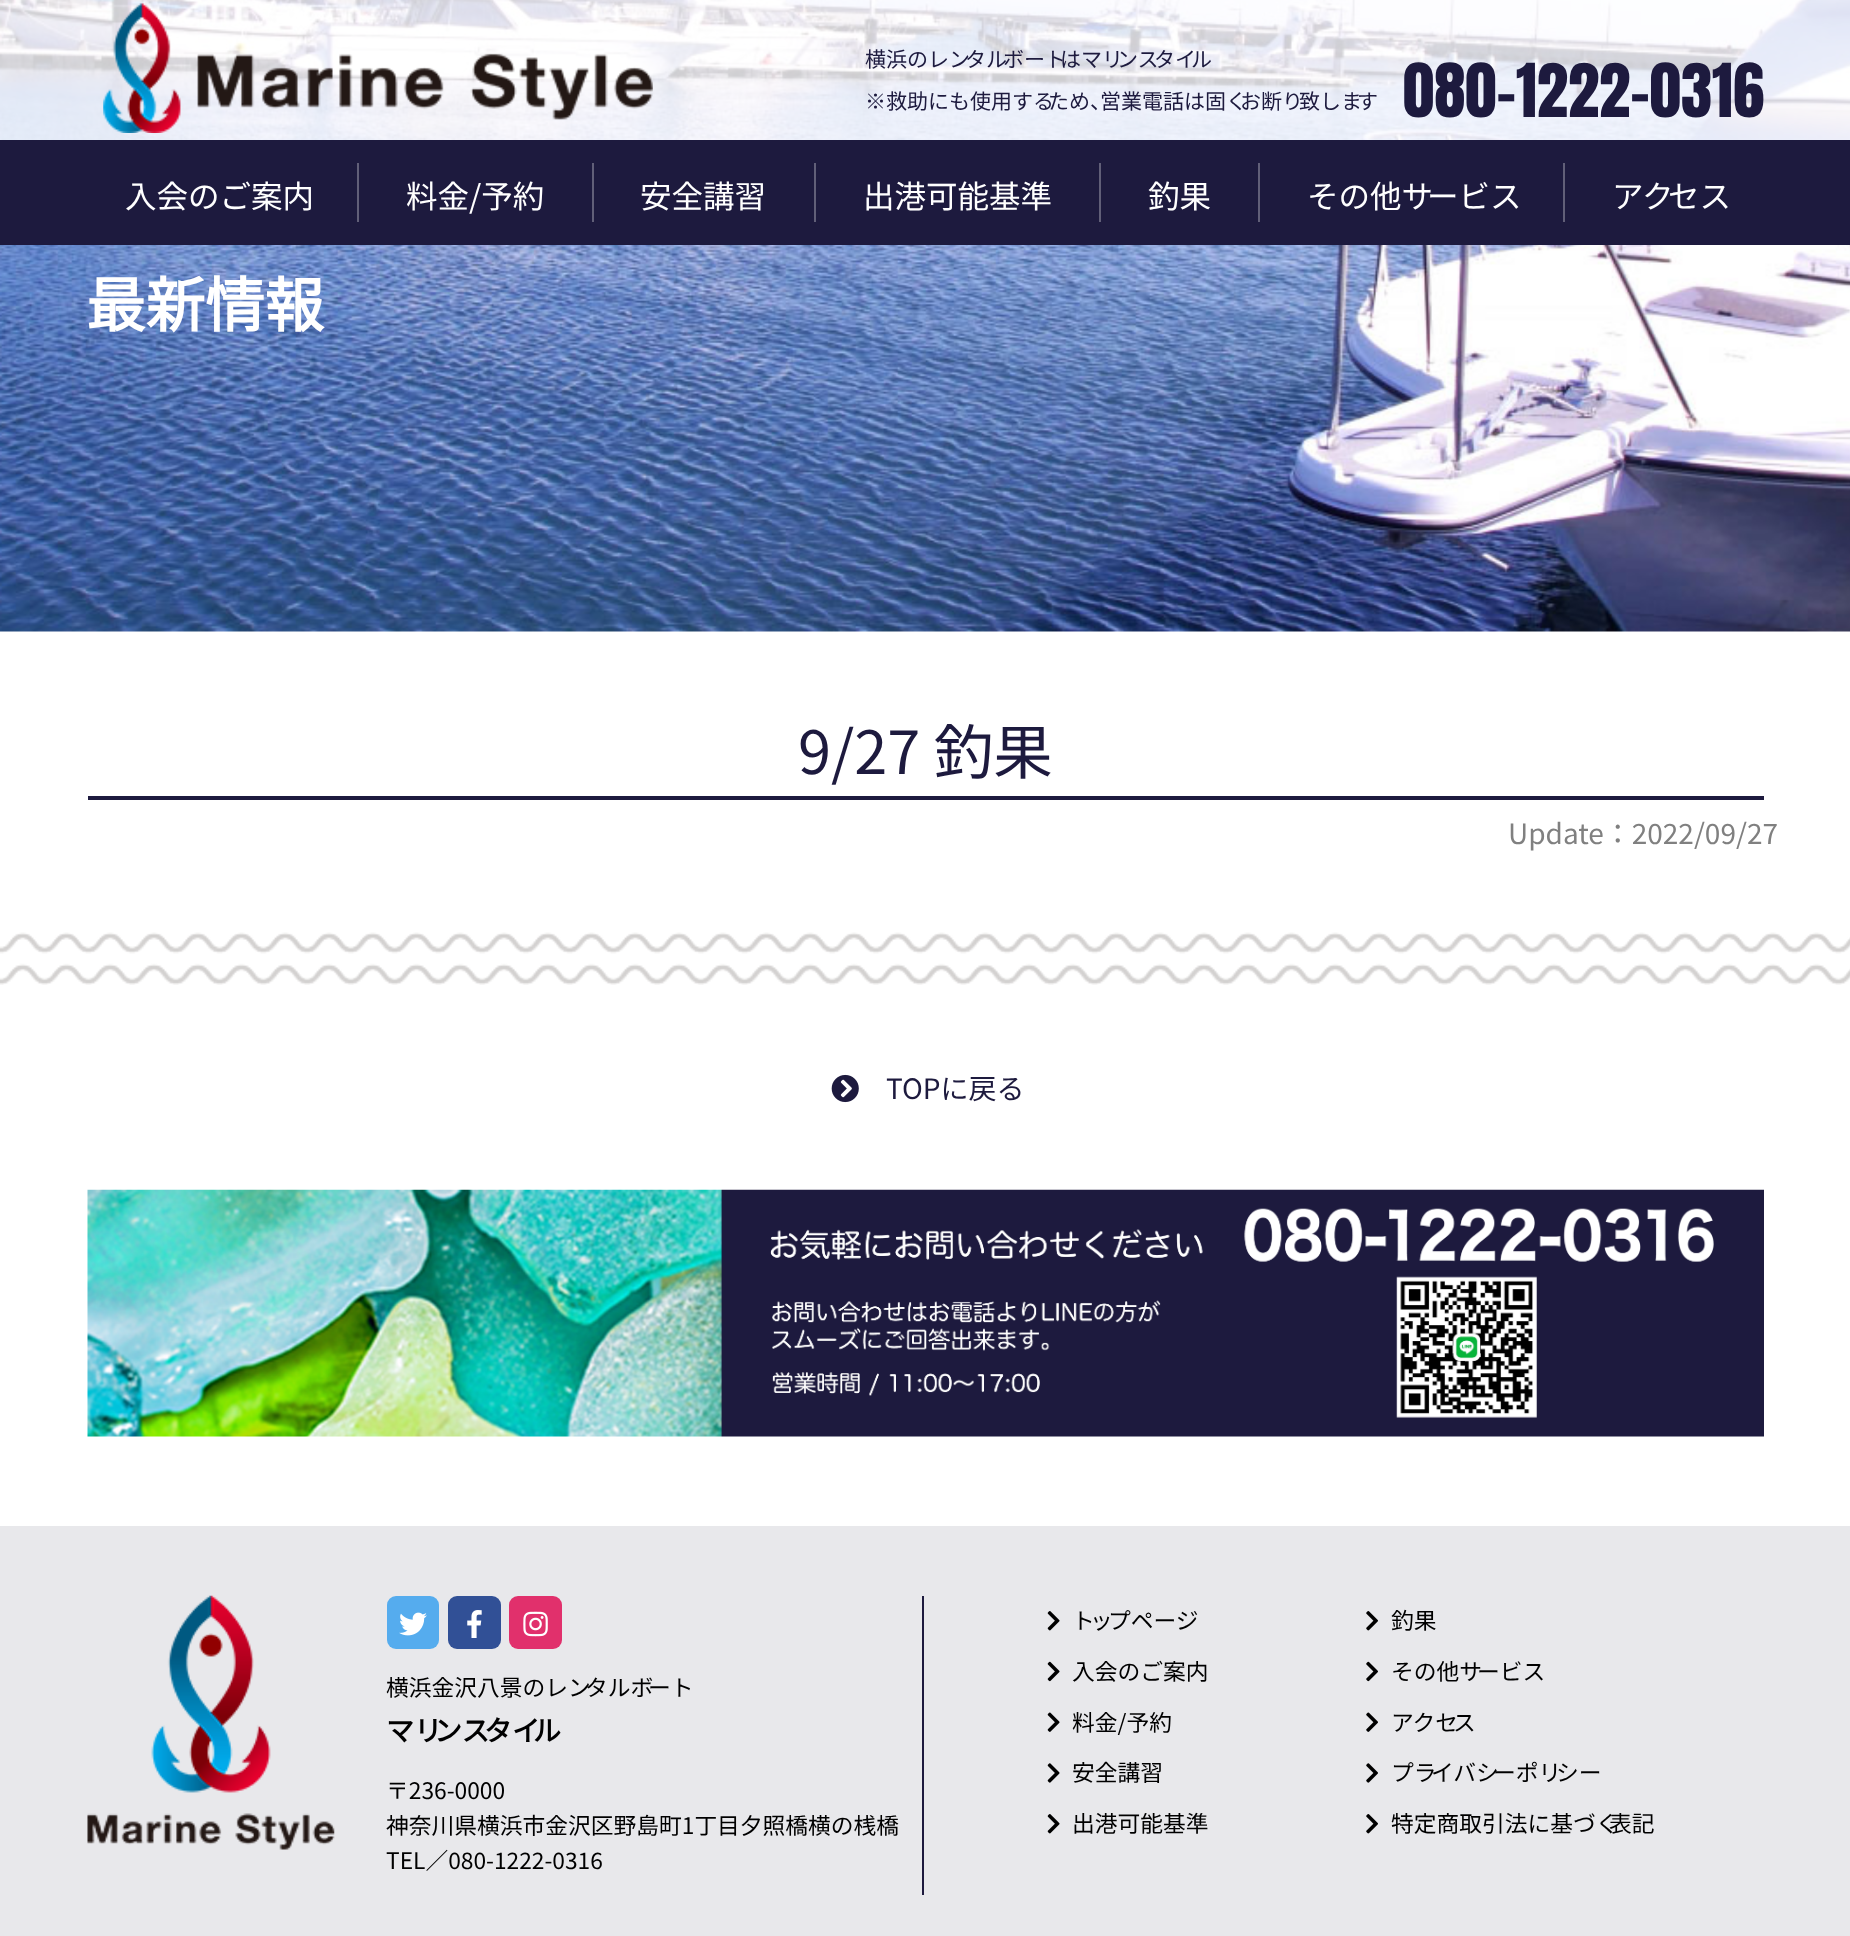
<svg xmlns="http://www.w3.org/2000/svg" width="1850" height="1936" viewBox="0 0 1850 1936">
  <style>
    .t1 { font: 100 21px Noto Sans JP; fill: #1d1a3e; }
    .t2 { font: 63px Anton; fill: #1d1a3e; }
    .t3 { font: 100 31.5px Noto Sans JP; fill: #fff; }
    .t4 { font: bold 59.5px Noto Sans JP; fill: #fff; }
    .t5 { font: 100 59.5px Noto Sans JP; fill: #1d1a3e; }
    .t6 { font: 100 28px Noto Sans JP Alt; fill: #808080; }
    .t7 { font: 100 28px Noto Sans JP; fill: #1d1a3e; }
    .t8 { font: 100 22.75px Noto Sans JP; fill: #000; }
    .t9 { font: bold 28px Noto Sans JP; fill: #000; }
    .t10 { font: 100 22.75px Noto Sans JP Alt; fill: #000; }
  </style>
  <rect width="100%" height="100%" fill="#fff"/>
  <image x="0" y="0" width="1850" height="632" href="images/2.png"/>
  <rect x="0" y="0" width="1850" height="140" fill="#ffffffcc"/>
  <image x="103" y="3" width="550" height="130" href="images/1.png"/>
  <text x="865" y="67" class="t1">横浜のレン</text>
  <text x="965" y="67" class="t1">タル</text>
  <text x="1003" y="67" class="t1">ボート</text>
  <text x="1060" y="67" class="t1">はマリ</text>
  <text x="1117" y="67" class="t1">ンス</text>
  <text x="1154" y="67" class="t1">タイ</text>
  <text x="1191" y="67" class="t1">ル</text>
  <text x="865" y="109" class="t1">※救助にも使用する</text>
  <text x="1048" y="109" class="t1">ため、</text>
  <text x="1100" y="109" class="t1">営業電話は固く</text>
  <text x="1240" y="109" class="t1">お断り</text>
  <text x="1299" y="109" class="t1">致しま</text>
  <text x="1357" y="109" class="t1">す</text>
  <text x="1403" y="117" class="t2">080-1222-0316</text>
  <rect x="0" y="140" width="1850" height="105" fill="#1d1a3e"/>
  <text x="125" y="208" class="t3">入会のご案内</text>
  <rect x="357" y="163" width="2" height="59" fill="#615f78"/>
  <text x="406" y="208" class="t3">料金/予約</text>
  <rect x="592" y="163" width="2" height="59" fill="#615f78"/>
  <text x="640" y="208" class="t3">安全講習</text>
  <rect x="814" y="163" width="2" height="59" fill="#615f78"/>
  <text x="863" y="208" class="t3">出港可能基準</text>
  <rect x="1099" y="163" width="2" height="59" fill="#615f78"/>
  <text x="1148" y="208" class="t3">釣果</text>
  <rect x="1258" y="163" width="2" height="59" fill="#615f78"/>
  <text x="1307" y="208" class="t3">その他サ</text>
  <text x="1427" y="208" class="t3">ービス</text>
  <rect x="1563" y="163" width="2" height="59" fill="#615f78"/>
  <text x="1612" y="208" class="t3">アク</text>
  <text x="1668" y="208" class="t3">セス</text>
  <text x="86" y="327" class="t4">最新情報</text>
  <rect x="88" y="796" width="1676" height="4" fill="#1d1a3e"/>
  <text x="798" y="774" class="t5">9/27 釣果</text>
  <text x="1508" y="844" class="t6">Update：2022/09/27</text>
  <image x="0" y="932" width="1850" height="53" href="images/3.png"/>
  <image x="831" y="1074" width="28" height="29" href="images/4.png"/>
  <text x="886" y="1099" class="t7">TOPに戻る</text>
  <image x="87" y="1189" width="1677" height="248" href="images/5.png"/>
  <rect x="0" y="1526" width="1850" height="410" fill="#e8e8eb"/>
  <image x="87" y="1595" width="248" height="255" href="images/6.png"/>
  <rect x="387" y="1596" width="52" height="53" rx="9" fill="#55acee"/>
  <image x="399" y="1612" width="28" height="24" href="images/7.png"/>
  <rect x="448" y="1596" width="53" height="53" rx="9" fill="#315096"/>
  <image x="467" y="1610" width="15" height="28" href="images/8.png"/>
  <rect x="509" y="1596" width="53" height="53" rx="9" fill="#e1306c"/>
  <image x="523" y="1611" width="25" height="26" href="images/9.png"/>
  <text x="386" y="1696" class="t8">横浜金沢八景のレン</text>
  <text x="585" y="1696" class="t8">タルボ</text>
  <text x="648" y="1696" class="t8">ート</text>
  <text x="386" y="1741" class="t9">マリ</text>
  <text x="434" y="1741" class="t9">ンス</text>
  <text x="484" y="1741" class="t9">タイ</text>
  <text x="533" y="1741" class="t9">ル</text>
  <text x="386" y="1799" class="t10">〒236-0000</text>
  <text x="386" y="1834" class="t8">神奈川県横浜市金沢区野島町1丁目夕照橋横の桟橋</text>
  <text x="386" y="1869" class="t8">TEL／080-1222-0316</text>
  <rect x="922" y="1596" width="2" height="299" fill="#1d1a3e"/>
  <image x="1047" y="1611" width="13" height="20" href="images/10.png"/>
  <text x="1072" y="1629" class="t8">ト</text>
  <text x="1090" y="1629" class="t8">ッ</text>
  <text x="1108" y="1629" class="t8">プページ</text>
  <image x="1047" y="1661" width="13" height="21" href="images/11.png"/>
  <text x="1072" y="1680" class="t8">入会のご案内</text>
  <image x="1047" y="1712" width="13" height="20" href="images/12.png"/>
  <text x="1072" y="1731" class="t8">料金/予約</text>
  <image x="1047" y="1763" width="13" height="20" href="images/13.png"/>
  <text x="1072" y="1781" class="t8">安全講習</text>
  <image x="1047" y="1814" width="13" height="20" href="images/10.png"/>
  <text x="1072" y="1832" class="t8">出港可能基準</text>
  <image x="1366" y="1611" width="12" height="20" href="images/14.png"/>
  <text x="1391" y="1629" class="t8">釣果</text>
  <image x="1366" y="1661" width="12" height="21" href="images/15.png"/>
  <text x="1391" y="1680" class="t8">その他サ</text>
  <text x="1477" y="1680" class="t8">ービス</text>
  <image x="1366" y="1712" width="12" height="20" href="images/16.png"/>
  <text x="1391" y="1731" class="t8">アクセ</text>
  <text x="1453" y="1731" class="t8">ス</text>
  <image x="1366" y="1763" width="12" height="20" href="images/17.png"/>
  <text x="1391" y="1781" class="t8">プラ</text>
  <text x="1431" y="1781" class="t8">イバシ</text>
  <text x="1493" y="1781" class="t8">ーポリ</text>
  <text x="1556" y="1781" class="t8">シー</text>
  <image x="1366" y="1814" width="12" height="20" href="images/14.png"/>
  <text x="1391" y="1832" class="t8">特定商取引法に基づく</text>
  <text x="1609" y="1832" class="t8">表記</text>
</svg>
